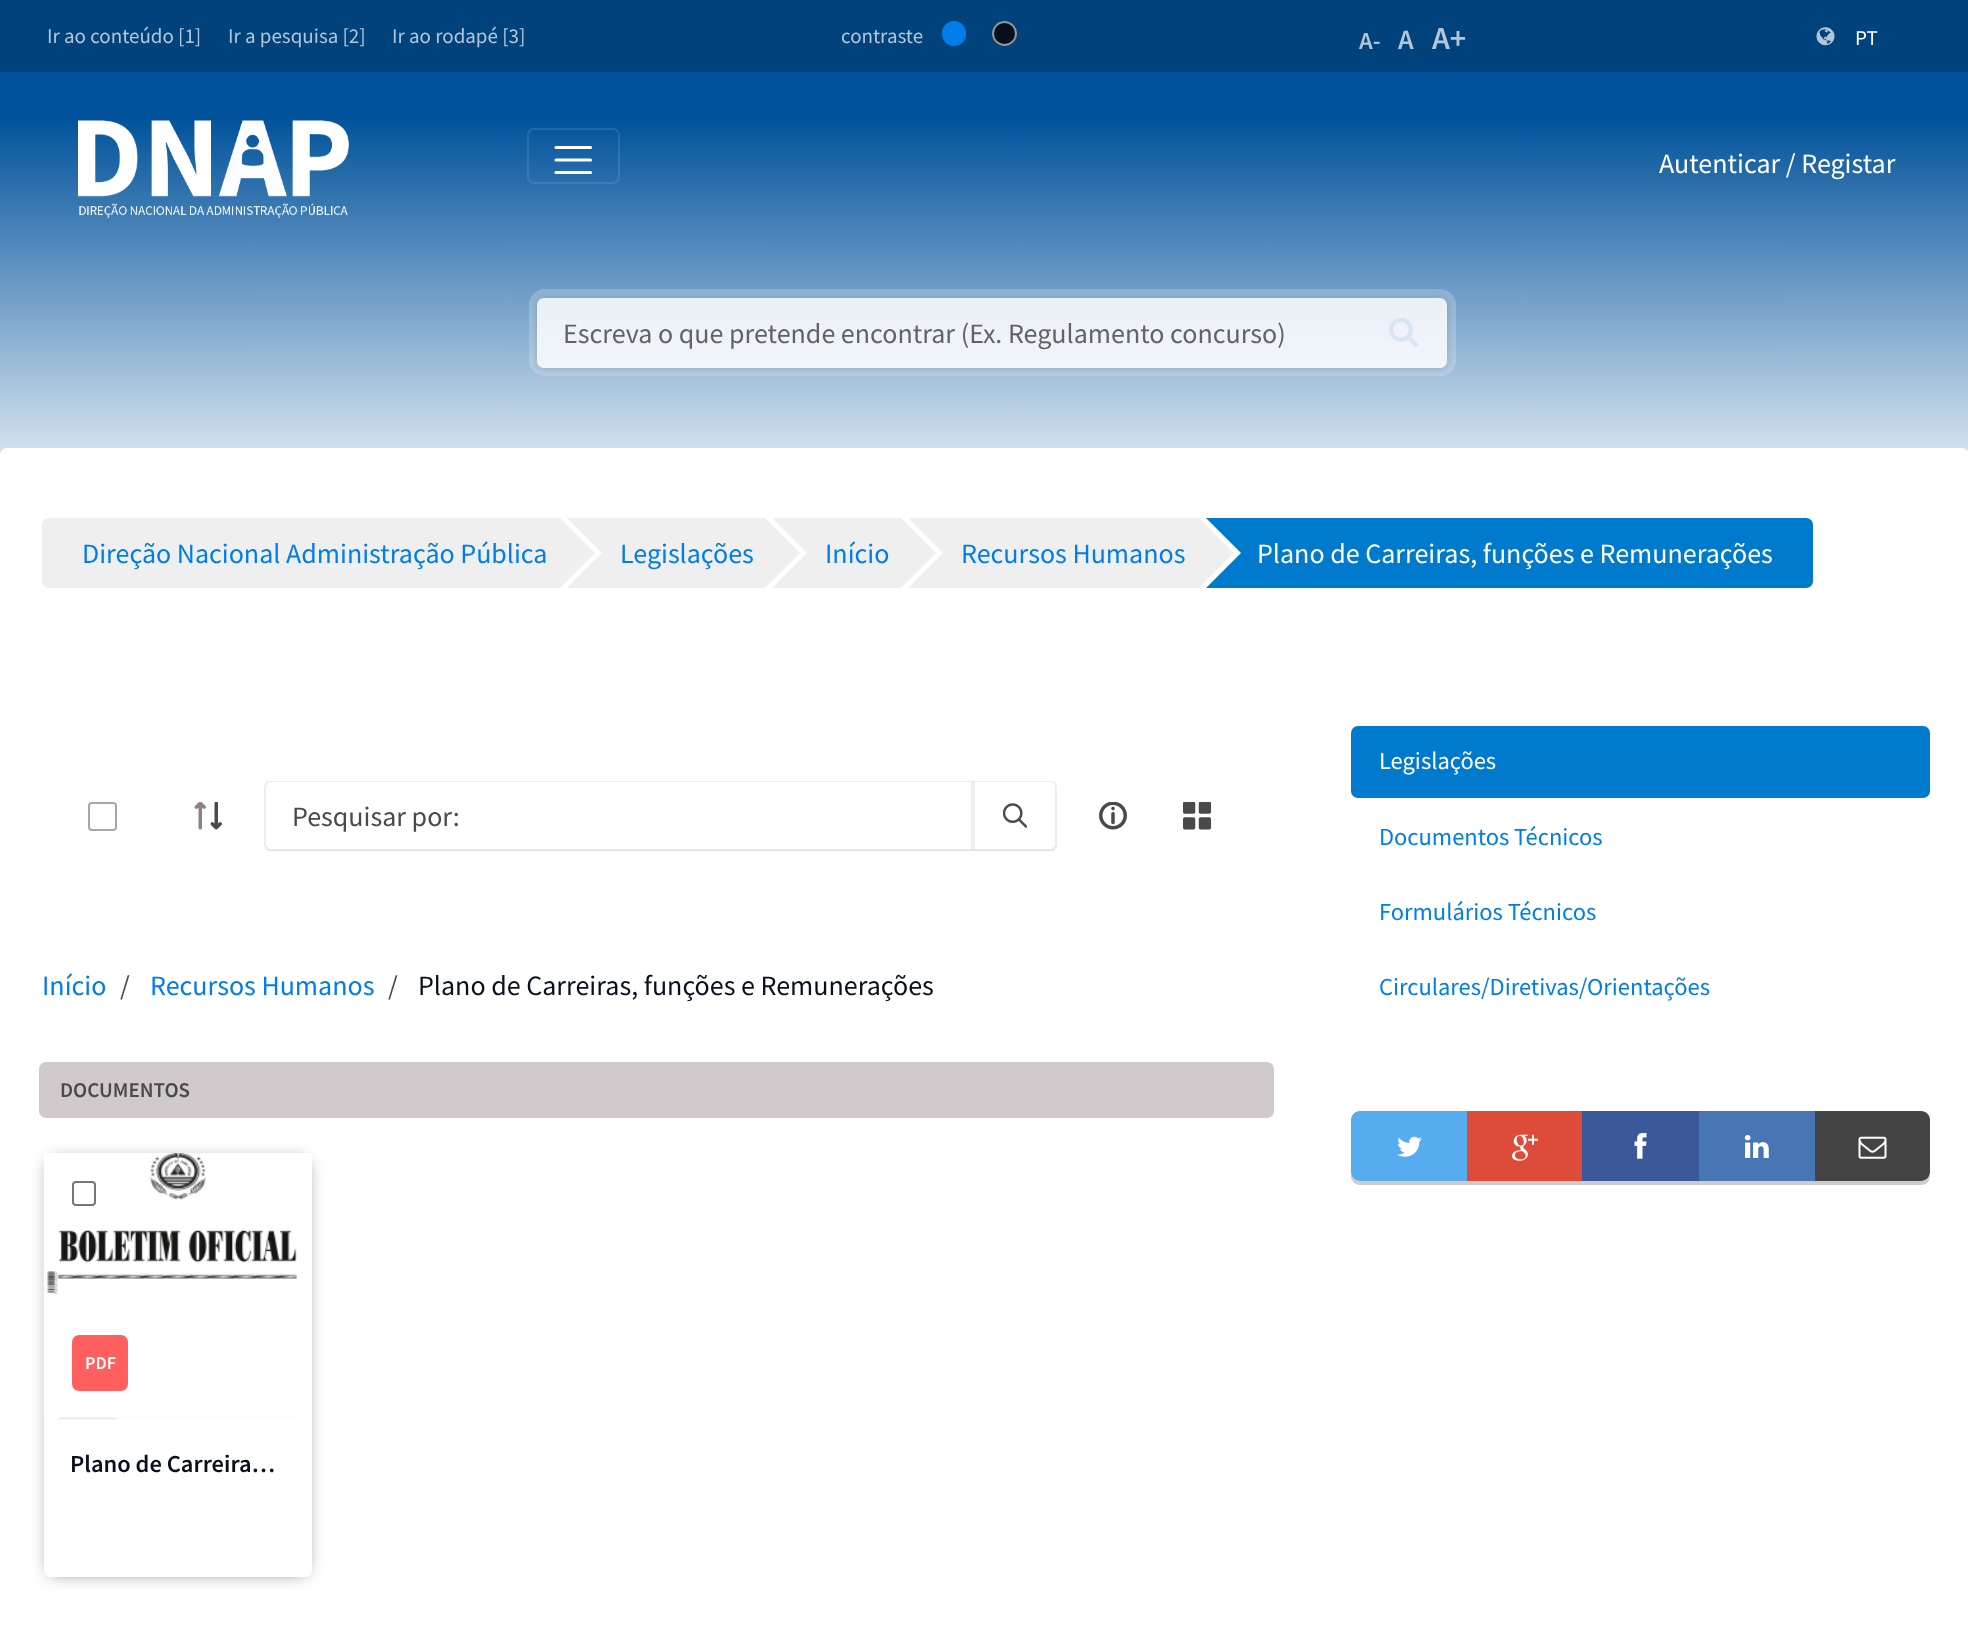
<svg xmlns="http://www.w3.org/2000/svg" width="1968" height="1627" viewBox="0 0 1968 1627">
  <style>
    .t1 { font: 21px Source Sans Pro; fill: #b3c6d8; }
    .t2 { font: 600 24.5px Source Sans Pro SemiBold; fill: #b3c6d8; }
    .t3 { font: 600 28px Source Sans Pro SemiBold; fill: #b3c6d8; }
    .t4 { font: 600 32px Source Sans Pro SemiBold; fill: #b3c6d8; }
    .t5 { font: 21px Source Sans Pro; fill: #fff; }
    .t6 { font: 28px Source Sans Pro; fill: #fff; }
    .t7 { font: 28px Source Sans Pro; fill: #636364; }
    .t8 { font: 28px Source Sans Pro; fill: #007de8; }
    .t9 { font: 28px Source Sans Pro; fill: #4a4a4a; }
    .t10 { font: 28px Source Sans Pro; fill: #09101d; }
    .t11 { font: 600 21px Source Sans Pro SemiBold; fill: #4a4a4a; }
    .t12 { font: 600 18px Source Sans Pro SemiBold; fill: #fff; }
    .t13 { font: 600 24.5px Source Sans Pro SemiBold; fill: #09101d; }
    .t14 { font: 24.5px Source Sans Pro; fill: #fff; }
    .t15 { font: 24.5px Source Sans Pro; fill: #007de8; }
  </style>
  <defs>
    <linearGradient id="g1" gradientUnits="userSpaceOnUse" x1="984" y1="72" x2="984" y2="520"><stop offset="0.1" stop-color="#00529b"/><stop offset="1" stop-color="#fff"/></linearGradient>
    <clipPath id="clip1"><path d="M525 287H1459V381H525ZM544 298H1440C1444 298 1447 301 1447 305V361C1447 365 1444 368 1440 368H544C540 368 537 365 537 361V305C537 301 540 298 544 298Z" clip-rule="evenodd"/></clipPath>
  </defs>
  <rect width="100%" height="100%" fill="#00427c"/>
  <text x="47" y="43" class="t1">Ir ao conteúdo [1]</text>
  <text x="228" y="43" class="t1">Ir a pesquisa [2]</text>
  <text x="392" y="43" class="t1">Ir ao rodapé [3]</text>
  <text x="841" y="43" class="t1">contraste</text>
  <rect x="942" y="21" width="24" height="25" rx="12" fill="#007de8"/>
  <circle cx="1004.5" cy="33.5" r="12.5" fill="#09101d"/>
  <circle cx="1004.5" cy="33.5" r="11.5" fill="none" stroke="#ffffff8f" stroke-width="2"/>
  <text x="1359" y="49" class="t2">A-</text>
  <text x="1398" y="49" class="t3">A</text>
  <text x="1432" y="49" class="t4">A+</text>
  <image x="1816" y="27" width="19" height="19" href="images/1.png"/>
  <text x="1855" y="45" class="t5">PT</text>
  <rect x="0" y="72" width="1968" height="383" fill="url(#g1)"/>
  <image x="78" y="120" width="271" height="99" href="images/2.png"/>
  <rect x="528" y="129" width="91" height="54" rx="6" fill="none" stroke="#ffffff1a" stroke-width="2"/>
  <path d="M556 147.5H590.5M556 160H590.5M556 172.5H590.5" fill="none" stroke="#fff" stroke-width="3.1" stroke-linecap="round"/>
  <text x="1659" y="173" class="t6">Autenticar / Registar</text>
  <image x="1389" y="318" width="29" height="29" href="images/3.png"/>
  <rect x="533.5" y="293.5" width="918" height="78" rx="11.5" fill="none" stroke="#ffffff36" stroke-width="9"/>
  <g clip-path="url(#clip1)">
    <rect x="537" y="299" width="910" height="70" rx="7" fill="#00000029" filter="blur(3.5px)"/>
  </g>
  <rect x="537" y="298" width="910" height="70" rx="7" fill="#ffffffd9"/>
  <text x="563" y="343" class="t7">Escreva o que pretende encontrar (Ex. Regulamento concurso)</text>
  <rect x="0" y="448" width="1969" height="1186" rx="7" fill="#fff"/>
  <path d="M49 518H567V588H49C45 588 42 585 42 581V525C42 521 45 518 49 518Z" fill="#efefef"/>
  <rect x="560" y="518" width="7" height="70" fill="#fff"/>
  <text x="82" y="563" class="t8">Direção Nacional Administração Pública</text>
  <rect x="567" y="518" width="198" height="70" fill="#efefef"/>
  <path d="M567 588V518L602 553Z" fill="#fff"/>
  <path d="M560 588V518L595 553Z" fill="#efefef"/>
  <text x="620" y="563" class="t8">Legislações</text>
  <rect x="772" y="518" width="129" height="70" fill="#efefef"/>
  <path d="M772 588V518L807 553Z" fill="#fff"/>
  <path d="M765 588V518L800 553Z" fill="#efefef"/>
  <text x="825" y="563" class="t8">Início</text>
  <rect x="908" y="518" width="291" height="70" fill="#efefef"/>
  <path d="M908 588V518L943 553Z" fill="#fff"/>
  <path d="M901 588V518L936 553Z" fill="#efefef"/>
  <text x="961" y="563" class="t8">Recursos Humanos</text>
  <path d="M1206 518H1806C1810 518 1813 521 1813 525V581C1813 585 1810 588 1806 588H1206Z" fill="#007acc"/>
  <path d="M1206 588V518L1241 553Z" fill="#fff"/>
  <path d="M1199 588V518L1234 553Z" fill="#efefef"/>
  <text x="1257" y="563" class="t6">Plano de Carreiras, funções e Remunerações</text>
  <rect x="89" y="803" width="27" height="27" rx="3" fill="none" stroke="#ada4a4" stroke-width="2"/>
  <image x="194" y="802" width="28" height="28" href="images/4.png"/>
  <path d="M264 842C264 846 266 851 271 851H973V849H271C267 849 264 846 264 842Z" fill="#eee"/>
  <path d="M271 782H973V781H271C266 781 264 785 264 789C264 785 267 782 271 782Z" fill="#eee"/>
  <path d="M266 849C268 850 269 851 271 851H973V781H971V850H270Z" fill="#dcdcdc80"/>
  <path d="M269 781C266 782 264 785 264 788V844C264 848 267 851 271 851H973V850H273C269 850 266 847 266 844V788C266 785 267 783 269 781Z" fill="#dcdcdc80"/>
  <text x="292" y="826" class="t9">Pesquisar por:</text>
  <path d="M973 849V851H1050C1054 851 1057 848 1057 844V842C1057 846 1054 849 1050 849Z" fill="#eee"/>
  <path d="M973 782H1050C1054 782 1057 785 1057 789V788C1057 784 1054 781 1050 781H973Z" fill="#eee"/>
  <path d="M973 850V851H1050C1054 851 1057 848 1057 844V788C1057 785 1055 782 1052 781C1054 783 1055 785 1055 788V844C1055 847 1052 850 1048 850Z" fill="#dcdcdc80"/>
  <path d="M973 781V851H1050C1051 851 1053 851 1054 850H975V781Z" fill="#dcdcdc80"/>
  <image x="1003" y="803" width="24" height="25" href="images/5.png"/>
  <image x="1099" y="802" width="28" height="28" href="images/6.png"/>
  <image x="1183" y="802" width="28" height="28" href="images/7.png"/>
  <text x="42" y="995" class="t8">Início</text>
  <text x="120" y="995" class="t9">/</text>
  <text x="150" y="995" class="t8">Recursos Humanos</text>
  <text x="388" y="995" class="t9">/</text>
  <text x="418" y="995" class="t10">Plano de Carreiras, funções e Remunerações</text>
  <rect x="39" y="1062" width="1235" height="56" rx="7" fill="#d1cacd"/>
  <text x="60" y="1097" class="t11">DOCUMENTOS</text>
  <rect x="51" y="1162" width="254" height="410" fill="#00000099" filter="blur(9px)"/>
  <rect x="44" y="1153" width="268" height="424" rx="7" fill="#fff"/>
  <image x="43" y="1153" width="269" height="267" href="images/8.png"/>
  <rect x="73" y="1182" width="22" height="23" rx="3" fill="none" stroke="#767676" stroke-width="2"/>
  <rect x="72" y="1335" width="56" height="56" rx="7" fill="#ff5f5f"/>
  <text x="85" y="1369" class="t12">PDF</text>
  <text x="70" y="1472" class="t13">Plano de Carreira…</text>
  <rect x="1351" y="726" width="579" height="72" rx="7" fill="#007acc"/>
  <text x="1379" y="769" class="t14">Legislações</text>
  <text x="1379" y="845" class="t15">Documentos Técnicos</text>
  <text x="1379" y="920" class="t15">Formulários Técnicos</text>
  <text x="1379" y="995" class="t15">Circulares/Diretivas/Orientações</text>
  <path d="M1351 1172V1176C1351 1181 1355 1185 1360 1185H1467V1115H1466V1181H1360C1355 1181 1351 1177 1351 1172Z" fill="#ccc"/>
  <path d="M1360 1111H1467V1181H1360C1355 1181 1351 1177 1351 1172V1120C1351 1115 1355 1111 1360 1111Z" fill="#55acee"/>
  <image x="1397" y="1136" width="25" height="21" href="images/9.png"/>
  <rect x="1467" y="1181" width="232" height="4" fill="#ccc"/>
  <rect x="1467" y="1111" width="115" height="70" fill="#dd4b39"/>
  <image x="1512" y="1134" width="26" height="27" href="images/10.png"/>
  <rect x="1582" y="1111" width="117" height="70" fill="#3b5998"/>
  <image x="1634" y="1133" width="13" height="26" href="images/11.png"/>
  <path d="M1699 1115V1185H1815V1115V1181H1699Z" fill="#ccc"/>
  <rect x="1699" y="1111" width="116" height="70" fill="#4875b4"/>
  <image x="1744" y="1135" width="25" height="23" href="images/12.png"/>
  <path d="M1815 1181V1185H1921C1926 1185 1930 1181 1930 1176V1175C1929 1178 1926 1181 1922 1181Z" fill="#ccc"/>
  <path d="M1815 1111H1921C1926 1111 1930 1115 1930 1120V1172C1930 1177 1926 1181 1921 1181H1815Z" fill="#444"/>
  <image x="1858" y="1136" width="29" height="23" href="images/13.png"/>
</svg>
